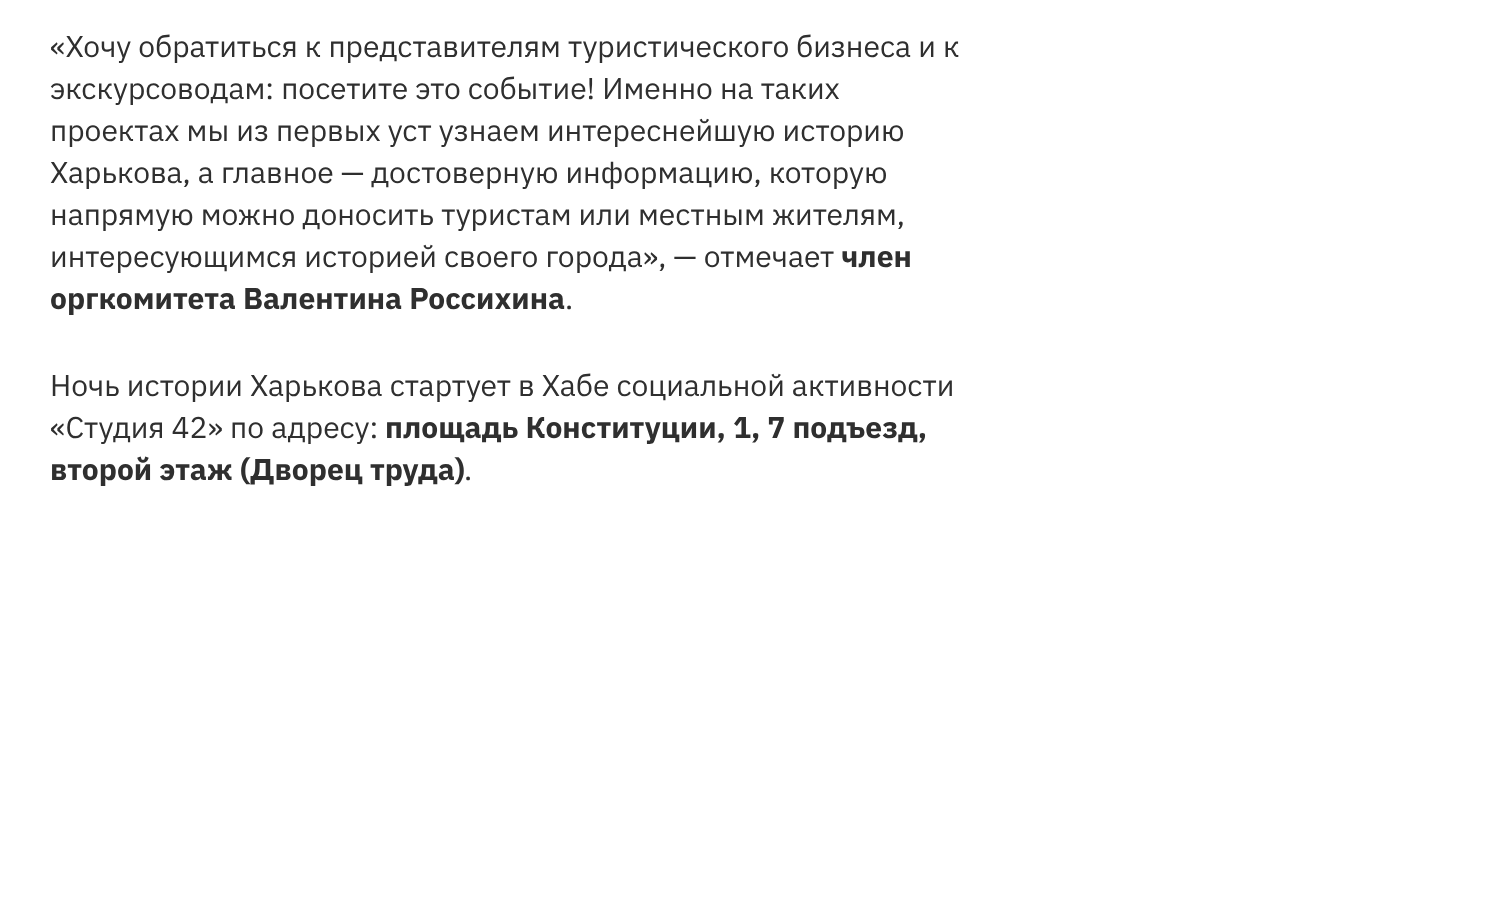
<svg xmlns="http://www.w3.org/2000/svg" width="1494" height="915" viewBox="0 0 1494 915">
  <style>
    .t1 { font: 30px IBM Plex Sans; fill: #2f2f2f; }
    .t2 { font: bold 30px IBM Plex Sans; fill: #2f2f2f; }
  </style>
  <rect width="100%" height="100%" fill="#fff"/>
  <text x="50" y="57" class="t1">«Хочу обратиться к представителям туристического бизнеса и к</text>
  <text x="50" y="99" class="t1">экскурсоводам: посетите это событие! Именно на таких</text>
  <text x="50" y="141" class="t1">проектах мы из первых уст узнаем интереснейшую историю</text>
  <text x="50" y="183" class="t1">Харькова, а главное — достоверную информацию, которую</text>
  <text x="50" y="225" class="t1">напрямую можно доносить туристам или местным жителям,</text>
  <text x="50" y="267" class="t1">интересующимся историей своего города», — отмечает</text>
  <text x="841" y="267" class="t2">член</text>
  <text x="50" y="309" class="t2">оргкомитета Валентина Россихина</text>
  <text x="565" y="309" class="t1">.</text>
  <text x="50" y="396" class="t1">Ночь истории Харькова стартует в Хабе социальной активности</text>
  <text x="50" y="438" class="t1">«Студия 42» по адресу:</text>
  <text x="385" y="438" class="t2">площадь Конституции, 1, 7 подъезд,</text>
  <text x="50" y="480" class="t2">второй этаж (Дворец труда)</text>
  <text x="464" y="480" class="t1">.</text>
</svg>
